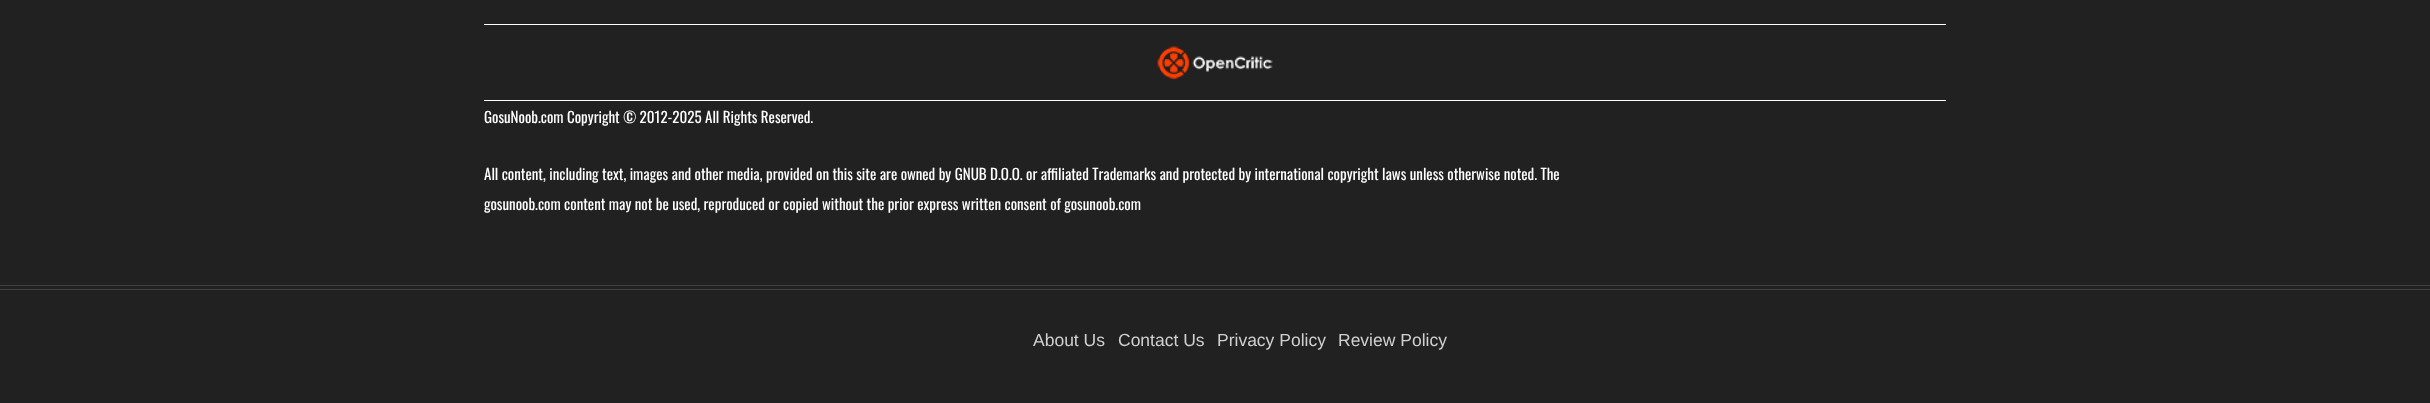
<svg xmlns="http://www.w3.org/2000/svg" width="2430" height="403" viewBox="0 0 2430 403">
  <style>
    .t1 { font: 15px Oswald; fill: #fff; }
    .t2 { font: 17.5px Liberation Sans; fill: #d0d0d0; }
  </style>
  <rect width="100%" height="100%" fill="#212121"/>
  <rect x="484" y="24" width="1462" height="1" fill="#fff"/>
  <rect x="484" y="100" width="1462" height="1" fill="#fff"/>
  <image x="1157" y="46" width="116" height="34" href="images/1.png"/>
  <text x="484" y="123" class="t1">GosuNoob.com Copyright © 2012-2025 All Rights Reserved.</text>
  <text x="484" y="180" class="t1">All content, including text, images and other media, provided on this site are owned by GNUB D.O.O. or affiliated Trademarks and protected by international copyright laws unless otherwise noted. The</text>
  <text x="484" y="210" class="t1">gosunoob.com content may not be used, reproduced or copied without the prior express written consent of gosunoob.com</text>
  <rect x="0" y="285" width="2430" height="1" fill="#404040"/>
  <rect x="0" y="289" width="2430" height="1" fill="#404040"/>
  <text x="1033" y="346" class="t2">About Us</text>
  <text x="1118" y="346" class="t2">Contact Us</text>
  <text x="1217" y="346" class="t2">Privacy Policy</text>
  <text x="1338" y="346" class="t2">Review Policy</text>
</svg>
